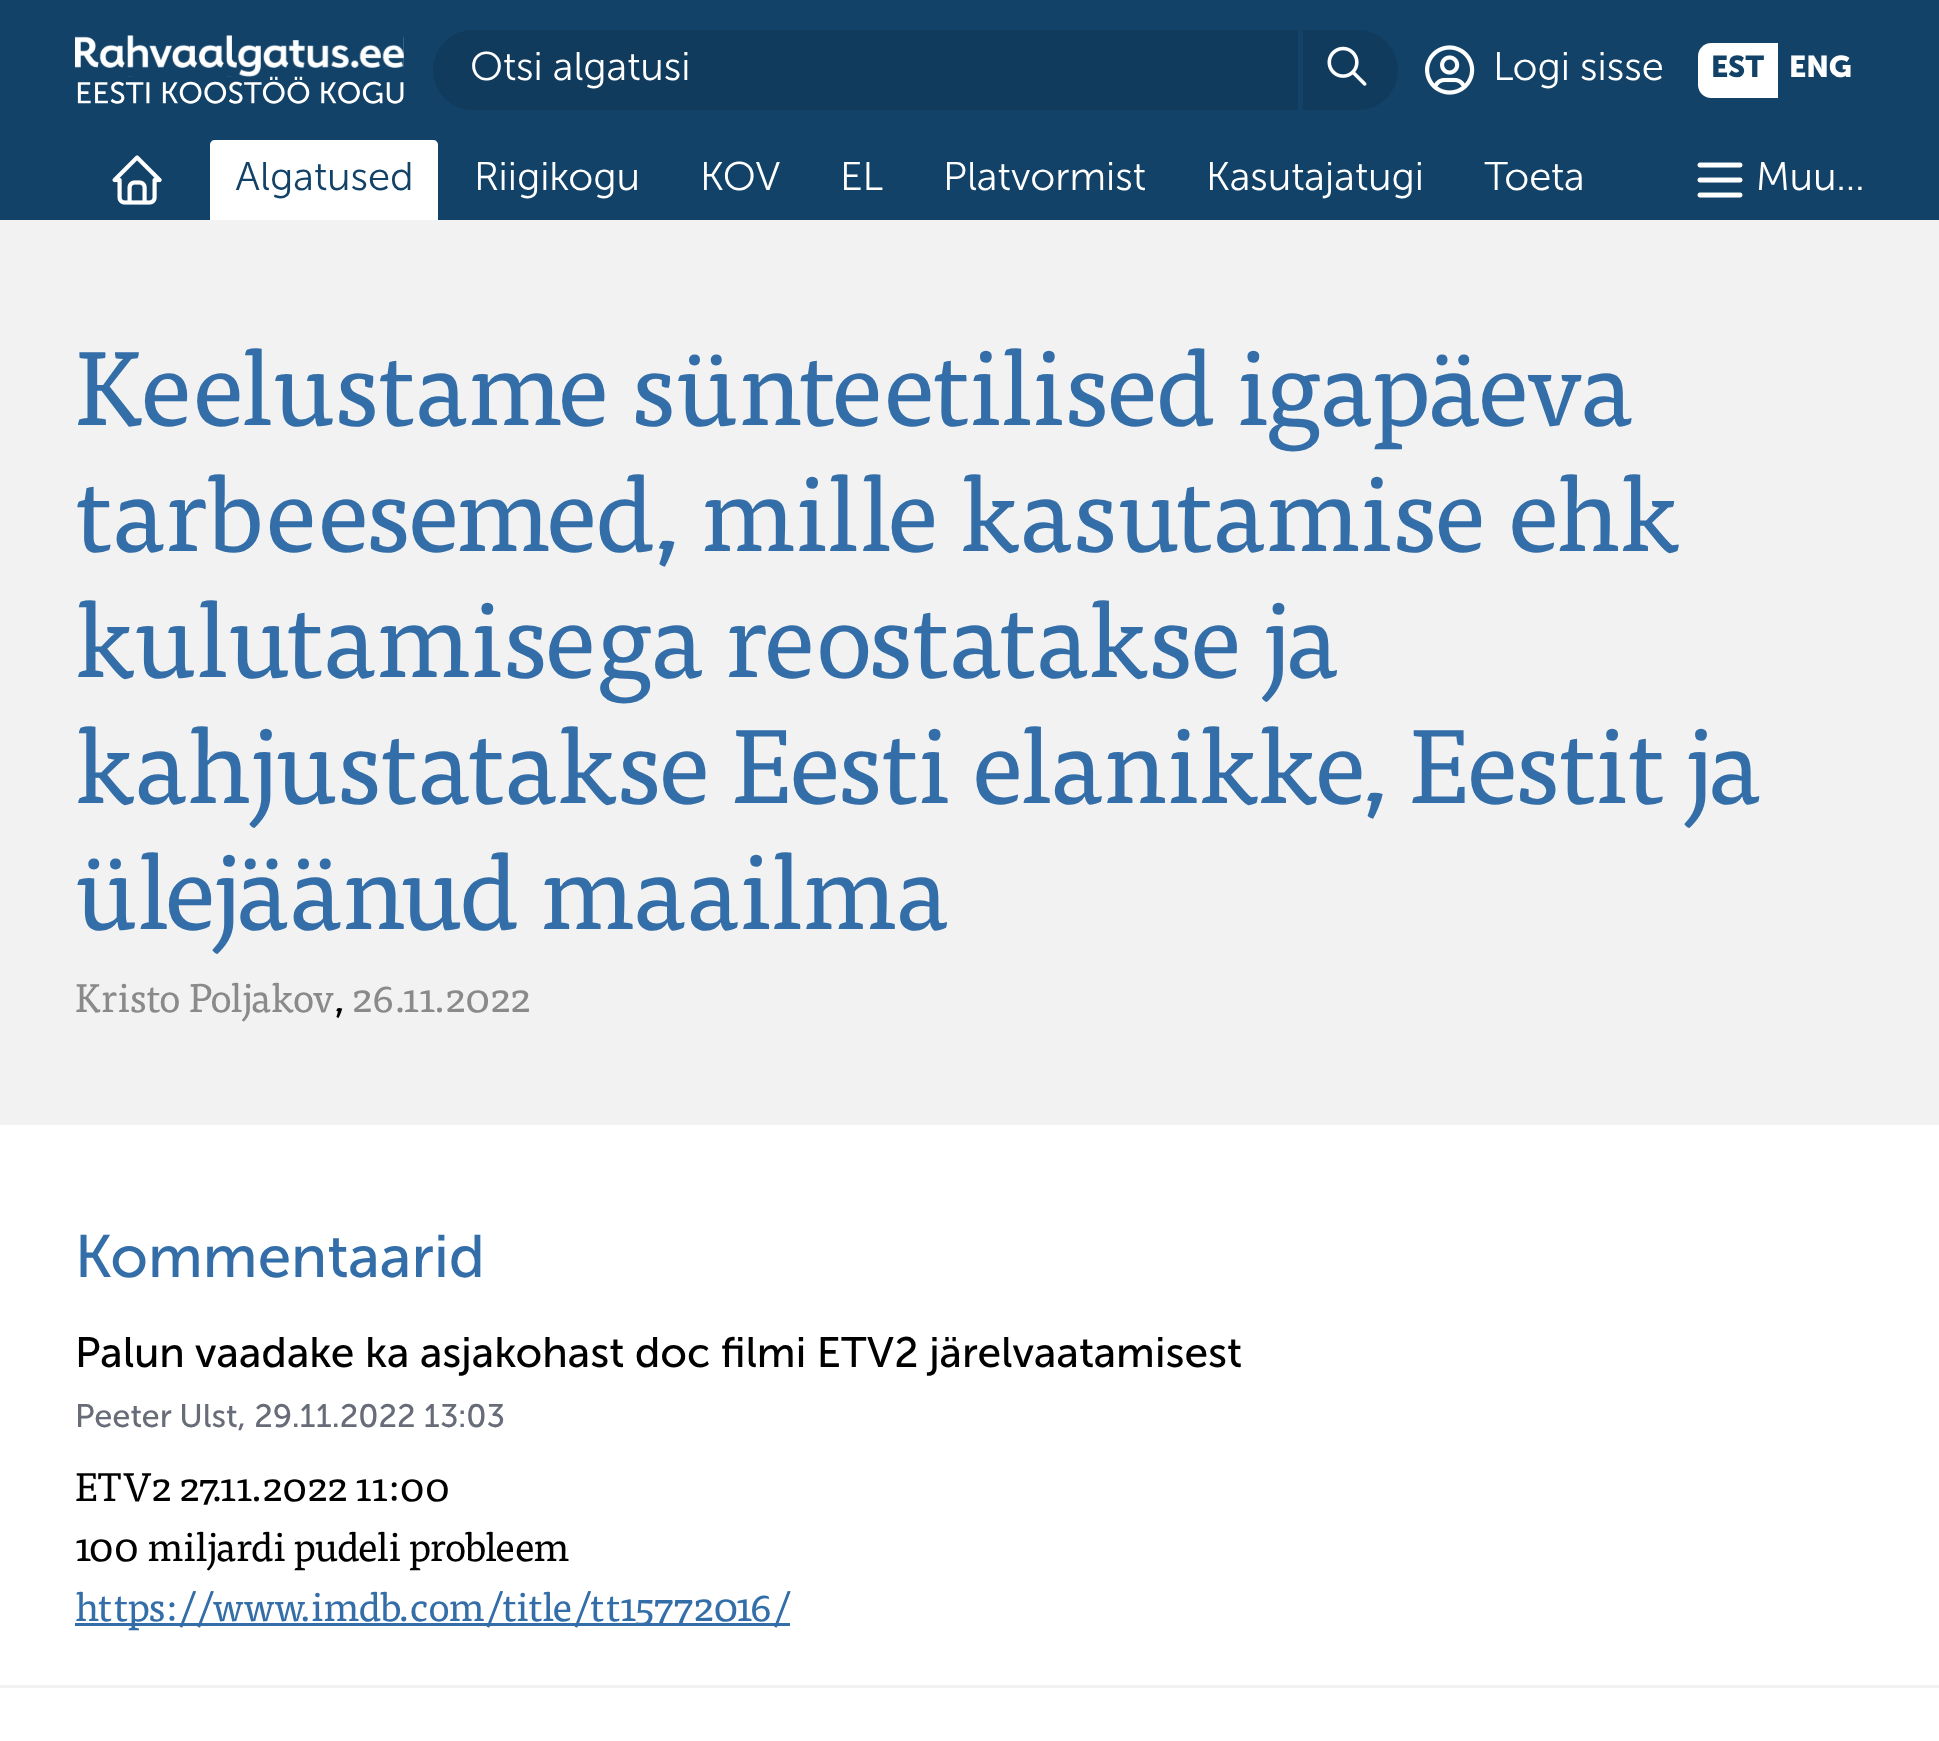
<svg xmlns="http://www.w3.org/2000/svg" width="1939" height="1741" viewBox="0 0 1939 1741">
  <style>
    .t1 { font: 40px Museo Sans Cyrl; fill: #fff; }
    .t2 { font: 30px 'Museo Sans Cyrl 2'; fill: #124267; }
    .t3 { font: 30px 'Museo Sans Cyrl 2'; fill: #fff; }
    .t4 { font: 40px Museo Sans Cyrl; fill: #124267; }
    .t5 { font: 105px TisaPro; fill: #346ea8; }
    .t6 { font: 40px TisaPro; fill: #8a8a8a; }
    .t7 { font: 40px TisaPro; fill: #000; }
    .t8 { font: 60px 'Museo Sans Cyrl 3'; fill: #346ea8; }
    .t9 { font: 42.5px 'Museo Sans Cyrl 3'; fill: #000; }
    .t10 { font: 32.5px 'Museo Sans Cyrl 3'; fill: #686b78; }
    .t11 { font: 40px TisaPro; fill: #346ea8; }
  </style>
  <rect width="100%" height="100%" fill="#f2f2f2"/>
  <rect x="0" y="0" width="1939" height="220" fill="#124267"/>
  <image x="75" y="35" width="329" height="69" href="images/1.png"/>
  <rect x="433" y="30" width="965" height="80" rx="40" fill="#103b5d"/>
  <text x="470" y="80" class="t1">Otsi algatusi</text>
  <rect x="1298" y="30" width="5" height="80" fill="#124267"/>
  <image x="1327" y="46" width="40" height="40" href="images/2.png"/>
  <image x="1425" y="45" width="50" height="50" href="images/3.png"/>
  <text x="1493" y="80" class="t1">Logi sisse</text>
  <path d="M1711 43H1778V98H1711C1704 98 1698 92 1698 85V56C1698 49 1704 43 1711 43Z" fill="#fff"/>
  <text x="1711" y="77" class="t2">EST</text>
  <text x="1789" y="77" class="t3">ENG</text>
  <image x="112" y="155" width="50" height="50" href="images/4.png"/>
  <path d="M215 140H433C436 140 438 142 438 145V220H210V145C210 142 212 140 215 140Z" fill="#fff"/>
  <text x="235" y="190" class="t4">Algatused</text>
  <text x="474" y="190" class="t1">Riigikogu</text>
  <text x="700" y="190" class="t1">KOV</text>
  <text x="840" y="190" class="t1">EL</text>
  <text x="943" y="190" class="t1">Platvormist</text>
  <text x="1206" y="190" class="t1">Kasutajatugi</text>
  <text x="1484" y="190" class="t1">Toeta</text>
  <image x="1697" y="162" width="46" height="36" href="images/5.png"/>
  <text x="1756" y="190" class="t1">Muu…</text>
  <text x="75" y="425" class="t5">Keelustame sünteetilised igapäeva</text>
  <text x="75" y="551" class="t5">tarbeesemed, mille kasutamise ehk</text>
  <text x="75" y="677" class="t5">kulutamisega reostatakse ja</text>
  <text x="75" y="803" class="t5">kahjustatakse Eesti elanikke, Eestit ja</text>
  <text x="75" y="929" class="t5">ülejäänud maailma</text>
  <text x="75" y="1012" class="t6">Kristo Poljakov</text>
  <text x="334" y="1012" class="t7">,</text>
  <text x="352" y="1012" class="t6">26.11.2022</text>
  <rect x="0" y="1125" width="1939" height="616" fill="#fff"/>
  <text x="75" y="1277" class="t8">Kommentaarid</text>
  <text x="75" y="1367" class="t9">Palun vaadake ka asjakohast doc filmi ETV2 järelvaatamisest</text>
  <text x="75" y="1427" class="t10">Peeter Ulst, 29.11.2022 13:03</text>
  <text x="75" y="1501" class="t7">ETV2 27.11.2022 11:00</text>
  <text x="75" y="1561" class="t7">100 miljardi pudeli probleem</text>
  <rect x="75" y="1623" width="715" height="3" fill="#346ea8"/>
  <text x="75" y="1621" class="t11">https://www.imdb.com/title/tt15772016/</text>
  <rect x="0" y="1685" width="1939" height="3" fill="#f2f2f2"/>
</svg>
